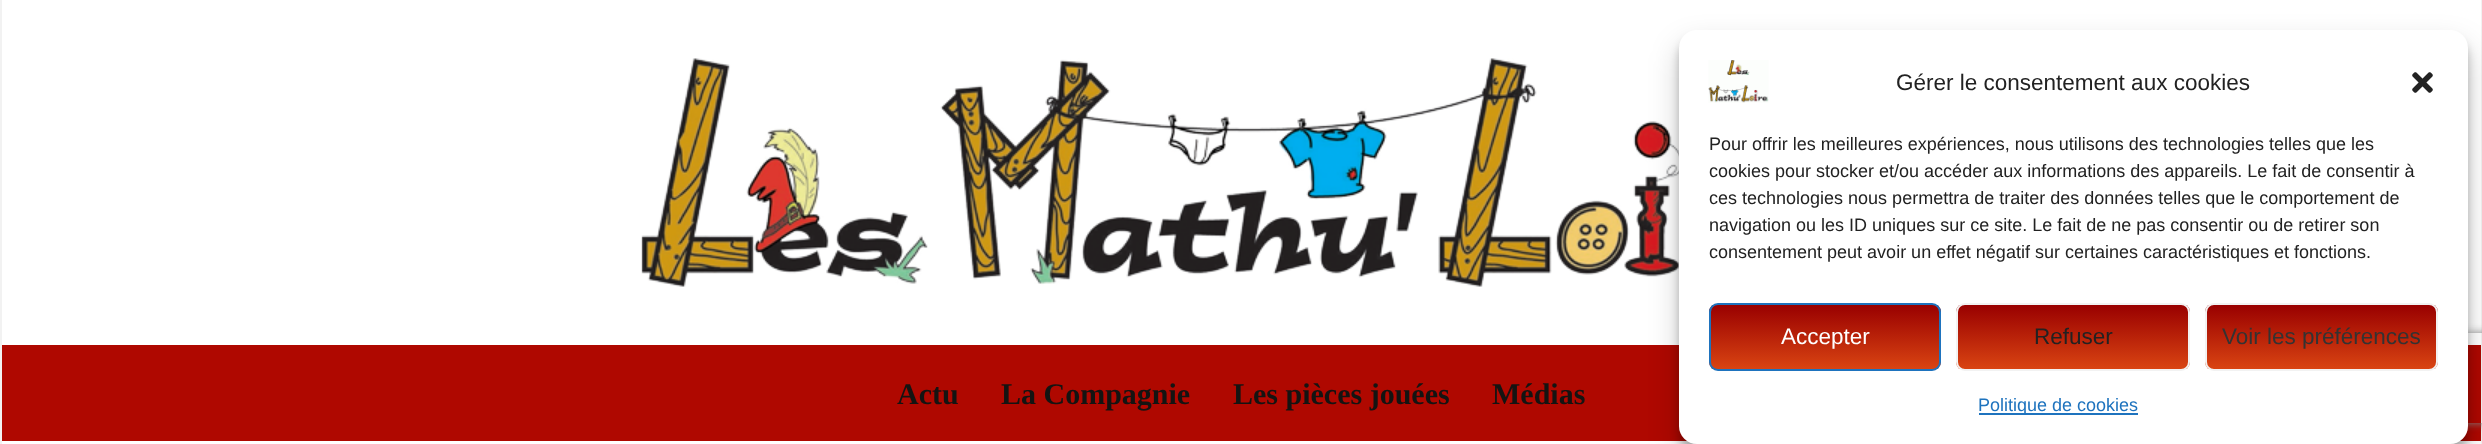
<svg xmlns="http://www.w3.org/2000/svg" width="2482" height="444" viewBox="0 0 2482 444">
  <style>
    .t1 { font: bold 30px Liberation Serif; fill: #141412; }
    .t2 { font: 22.5px Liberation Sans; fill: #222; }
    .t3 { font: 18px Liberation Sans; fill: #222; }
    .t4 { font: 22.5px Liberation Sans; fill: #fff; }
    .t5 { font: 22.5px Liberation Sans; fill: #333; }
    .t6 { font: 18px Liberation Sans; fill: #1e73be; }
  </style>
  <defs>
    <clipPath id="clip1"><path d="M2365 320H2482V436H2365ZM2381 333H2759C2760.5 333 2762 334.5 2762 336V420C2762 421.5 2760.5 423 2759 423H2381C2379.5 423 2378 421.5 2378 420V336C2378 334.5 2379.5 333 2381 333Z" clip-rule="evenodd"/></clipPath>
    <clipPath id="clip2"><rect x="1709" y="303" width="232" height="68" rx="9"/></clipPath>
    <linearGradient id="g1" gradientUnits="userSpaceOnUse" x1="1825" y1="305" x2="1825" y2="369"><stop offset="0" stop-color="#900"/><stop offset="1" stop-color="#d94412"/></linearGradient>
    <clipPath id="clip3"><rect x="1956" y="303" width="234" height="68" rx="9"/></clipPath>
    <linearGradient id="g2" gradientUnits="userSpaceOnUse" x1="2073" y1="305" x2="2073" y2="369"><stop offset="0" stop-color="#900"/><stop offset="1" stop-color="#d94412"/></linearGradient>
    <clipPath id="clip4"><rect x="2205" y="303" width="233" height="68" rx="9"/></clipPath>
    <linearGradient id="g3" gradientUnits="userSpaceOnUse" x1="2321" y1="305" x2="2321" y2="369"><stop offset="0" stop-color="#900"/><stop offset="1" stop-color="#d94412"/></linearGradient>
  </defs>
  <rect width="100%" height="100%" fill="#fff"/>
  <rect x="2481" y="0" width="1" height="444" fill="#f2f2f2"/>
  <rect x="0" y="0" width="2" height="444" fill="#f2f2f2"/>
  <image x="641" y="58" width="1038" height="229" href="images/1.png"/>
  <rect x="2" y="345" width="2479" height="96" fill="#af0800"/>
  <text x="897" y="404" class="t1">Actu</text>
  <text x="1001" y="404" class="t1">La Compagnie</text>
  <text x="1233" y="404" class="t1">Les pièces jouées</text>
  <text x="1492" y="404" class="t1">Médias</text>
  <rect x="1679" y="39" width="789" height="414" rx="18" fill="#0000003b" filter="blur(4.5px)"/>
  <rect x="1679" y="45" width="789" height="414" rx="18" fill="#00000030" filter="blur(15px)"/>
  <g clip-path="url(#clip1)">
    <rect x="2378" y="333" width="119" height="90" rx="3" fill="#808080" filter="blur(4px)"/>
  </g>
  <rect x="1679" y="30" width="789" height="414" rx="18" fill="#fff"/>
  <image x="1708" y="60" width="61" height="43" href="images/2.png"/>
  <text x="1896" y="90" class="t2">Gérer le consentement aux cookies</text>
  <image x="2412" y="72" width="21" height="21" href="images/3.png"/>
  <text x="1709" y="150" class="t3">Pour offrir les meilleures expériences, nous utilisons des technologies telles que les</text>
  <text x="1709" y="177" class="t3">cookies pour stocker et/ou accéder aux informations des appareils. Le fait de consentir à</text>
  <text x="1709" y="204" class="t3">ces technologies nous permettra de traiter des données telles que le comportement de</text>
  <text x="1709" y="231" class="t3">navigation ou les ID uniques sur ce site. Le fait de ne pas consentir ou de retirer son</text>
  <text x="1709" y="258" class="t3">consentement peut avoir un effet négatif sur certaines caractéristiques et fonctions.</text>
  <g clip-path="url(#clip2)">
    <rect x="1709" y="305" width="232" height="64" fill="url(#g1)"/>
  </g>
  <rect x="1710" y="304" width="230" height="66" rx="8" fill="none" stroke="#1e73be" stroke-width="2"/>
  <text x="1781" y="344" class="t4">Accepter</text>
  <g clip-path="url(#clip3)">
    <rect x="1956" y="305" width="234" height="64" fill="url(#g2)"/>
  </g>
  <rect x="1957" y="304" width="232" height="66" rx="8" fill="none" stroke="#f2f2f2" stroke-width="2"/>
  <text x="2034" y="344" class="t2">Refuser</text>
  <g clip-path="url(#clip4)">
    <rect x="2205" y="305" width="233" height="64" fill="url(#g3)"/>
  </g>
  <rect x="2206" y="304" width="231" height="66" rx="8" fill="none" stroke="#f2f2f2" stroke-width="2"/>
  <text x="2222" y="344" class="t5">Voir les préférences</text>
  <rect x="1979" y="413" width="159" height="2" fill="#1e73be"/>
  <text x="1978" y="411" class="t6">Politique de cookies</text>
</svg>
